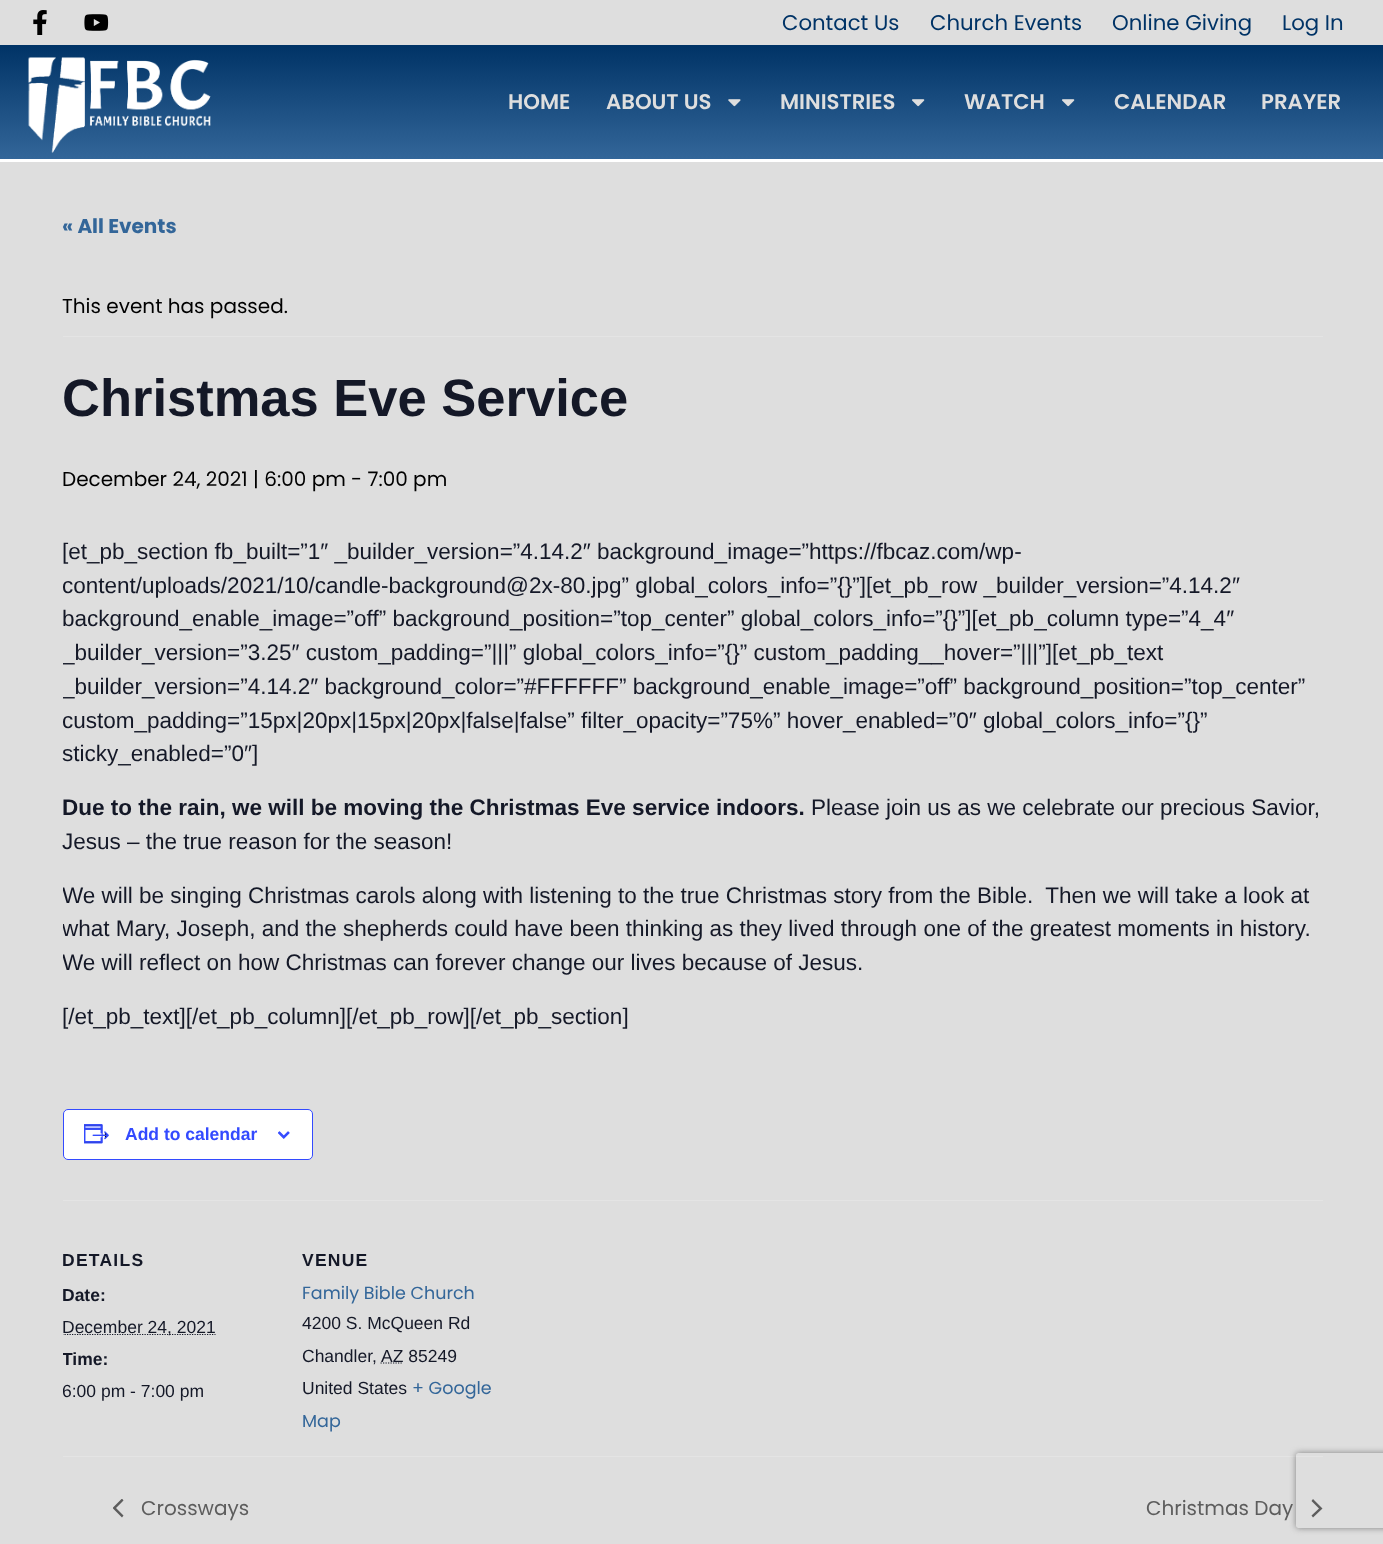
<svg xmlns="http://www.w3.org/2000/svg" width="1383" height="1544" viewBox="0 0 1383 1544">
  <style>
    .t1 { font: 21.25px Poppins; fill: #036; }
    .t2 { font: 600 21.25px Poppins; fill: #dedede; }
    .t3 { font: bold 20px Poppins; fill: #369; }
    .t4 { font: 20px Poppins; fill: #000; }
    .t5 { font: bold 52.5px Liberation Sans; fill: #141827; }
    .t6 { font: 22.5px Liberation Sans; fill: #141827; }
    .t7 { font: bold 22.5px Liberation Sans; fill: #141827; }
    .t8 { font: bold 17.5px Liberation Sans; fill: #334aff; }
    .t9 { font: bold 17.5px Liberation Sans; letter-spacing: 1.25px; fill: #141827; }
    .t10 { font: bold 17.5px Liberation Sans; fill: #141827; }
    .t11 { font: 17.5px Liberation Sans; fill: #141827; }
    .t12 { font: 17.5px Poppins; fill: #369; }
    .t13 { font: 20px Poppins; fill: #5d5d5d; }
  </style>
  <defs>
    <linearGradient id="g1" gradientUnits="userSpaceOnUse" x1="692" y1="45" x2="692" y2="159"><stop offset="0" stop-color="#036"/><stop offset="1" stop-color="#369"/></linearGradient>
    <clipPath id="clip1"><rect x="63" y="535" width="1260" height="921"/></clipPath>
    <clipPath id="clip2"><rect x="113" y="1499" width="11" height="19"/></clipPath>
    <clipPath id="clip3"><path d="M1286 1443H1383V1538H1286ZM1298.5 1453H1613.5C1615 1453 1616 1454 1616 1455.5V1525.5C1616 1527 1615 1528 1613.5 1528H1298.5C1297 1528 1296 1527 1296 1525.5V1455.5C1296 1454 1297 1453 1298.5 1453Z" clip-rule="evenodd"/></clipPath>
  </defs>
  <rect width="100%" height="100%" fill="#dedede"/>
  <image x="33" y="10" width="14" height="25" href="images/1.png"/>
  <image x="84" y="14" width="25" height="17" href="images/2.png"/>
  <text x="782" y="30" class="t1">Contact Us</text>
  <text x="930" y="30" class="t1">Church Events</text>
  <text x="1112" y="30" class="t1">Online Giving</text>
  <text x="1282" y="30" class="t1">Log In</text>
  <rect x="0" y="45" width="1383" height="114" fill="url(#g1)"/>
  <rect x="0" y="159" width="1383" height="3" fill="#fff"/>
  <image x="28" y="57" width="183" height="96" href="images/3.png"/>
  <text x="508" y="109" class="t2">HOME</text>
  <text x="606" y="109" class="t2">ABOUT US</text>
  <image x="728" y="99" width="13" height="8" href="images/4.png"/>
  <text x="780" y="109" class="t2">MINISTRIES</text>
  <image x="912" y="99" width="13" height="8" href="images/5.png"/>
  <text x="964" y="109" class="t2">WATCH</text>
  <image x="1062" y="99" width="13" height="8" href="images/5.png"/>
  <text x="1114" y="109" class="t2">CALENDAR</text>
  <text x="1261" y="109" class="t2">PRAYER</text>
  <text x="62" y="233" class="t3">« All Events</text>
  <rect x="63" y="336" width="1260" height="1" fill="#e4e4e4"/>
  <text x="62" y="313" class="t4">This event has passed.</text>
  <text x="62" y="416" class="t5">Christmas Eve Service</text>
  <text x="62" y="486" class="t4">December 24, 2021 | 6:00 pm - 7:00 pm</text>
  <text x="62" y="559" class="t6">[et_pb_section fb_built=”1″ _builder_version=”4.14.2″ background_image=”https://fbcaz.com/wp-</text>
  <g clip-path="url(#clip1)">
    <text x="62" y="593" class="t6">content/uploads/2021/10/candle-background@2x-80.jpg” global_colors_info=”{}”][et_pb_row _builder_version=”4.14.2″</text>
  </g>
  <text x="62" y="626" class="t6">background_enable_image=”off” background_position=”top_center” global_colors_info=”{}”][et_pb_column type=”4_4″</text>
  <g clip-path="url(#clip1)">
    <text x="62" y="660" class="t6">_builder_version=”3.25″ custom_padding=”|||” global_colors_info=”{}” custom_padding__hover=”|||”][et_pb_text</text>
    <text x="62" y="694" class="t6">_builder_version=”4.14.2″ background_color=”#FFFFFF” background_enable_image=”off” background_position=”top_center”</text>
    <text x="62" y="728" class="t6">custom_padding=”15px|20px|15px|20px|false|false” filter_opacity=”75%” hover_enabled=”0″ global_colors_info=”{}”</text>
  </g>
  <text x="62" y="761" class="t6">sticky_enabled=”0″]</text>
  <text x="62" y="815" class="t7">Due to the rain, we will be moving the Christmas Eve service indoors.</text>
  <text x="811" y="815" class="t6">Please join us as we celebrate our precious Savior,</text>
  <text x="62" y="849" class="t6">Jesus – the true reason for the season!</text>
  <g clip-path="url(#clip1)">
    <text x="62" y="903" class="t6" xml:space="preserve">We will be singing Christmas carols along with listening to the true Christmas story from the Bible.  Then we will take a look at</text>
    <text x="62" y="936" class="t6">what Mary, Joseph, and the shepherds could have been thinking as they lived through one of the greatest moments in history.</text>
    <text x="62" y="970" class="t6">We will reflect on how Christmas can forever change our lives because of Jesus.</text>
  </g>
  <text x="62" y="1024" class="t6">[/et_pb_text][/et_pb_column][/et_pb_row][/et_pb_section]</text>
  <rect x="63.5" y="1109.5" width="249" height="50" rx="4.5" fill="#fff" stroke="#334aff"/>
  <image x="84" y="1124" width="25" height="20" href="images/6.png"/>
  <text x="125" y="1140" class="t8">Add to calendar</text>
  <image x="278" y="1131" width="12" height="8" href="images/7.png"/>
  <rect x="63" y="1200" width="1260" height="1" fill="#e4e4e4"/>
  <text x="62" y="1266" class="t9">DETAILS</text>
  <text x="62" y="1301" class="t10">Date:</text>
  <g clip-path="url(#clip1)">
    <path d="M62 1334.5H215.5" fill="none" stroke="#141827" stroke-width="1.2" stroke-dasharray="1.25 1.25"/>
  </g>
  <text x="62" y="1333" class="t11">December 24, 2021</text>
  <g clip-path="url(#clip1)">
    <text x="62" y="1365" class="t10">Time:</text>
    <text x="62" y="1397" class="t11">6:00 pm - 7:00 pm</text>
  </g>
  <text x="302" y="1266" class="t9">VENUE</text>
  <text x="302" y="1299" class="t12">Family Bible Church</text>
  <text x="302" y="1329" class="t11">4200 S. McQueen Rd</text>
  <text x="302" y="1362" class="t11">Chandler</text>
  <text x="372" y="1362" class="t11">,</text>
  <path d="M380.5 1363H403" fill="none" stroke="#141827" stroke-width="1.2" stroke-dasharray="1.25 1.25"/>
  <text x="381" y="1362" class="t11">AZ 85249</text>
  <text x="302" y="1394" class="t11">United States</text>
  <text x="412" y="1394" class="t12">+ Google</text>
  <text x="302" y="1427" class="t12">Map</text>
  <rect x="63" y="1456" width="1260" height="1" fill="#e4e4e4"/>
  <g clip-path="url(#clip2)">
    <path d="M123.5 1515.5L122 1517.5L112.5 1508L122 1498.5L123.5 1500.5L116 1508Z" fill="#5d5d5d"/>
  </g>
  <text x="141" y="1515" class="t13">Crossways</text>
  <text x="1146" y="1515" class="t13">Christmas Day</text>
  <path d="M1311.5 1501L1313 1499L1322.5 1508.5L1313 1517.5L1311.5 1515.5L1319 1508.5Z" fill="#5d5d5d"/>
  <g clip-path="url(#clip3)">
    <rect x="1296" y="1453" width="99" height="75" rx="2.5" fill="#808080" filter="blur(3px)"/>
  </g>
</svg>
